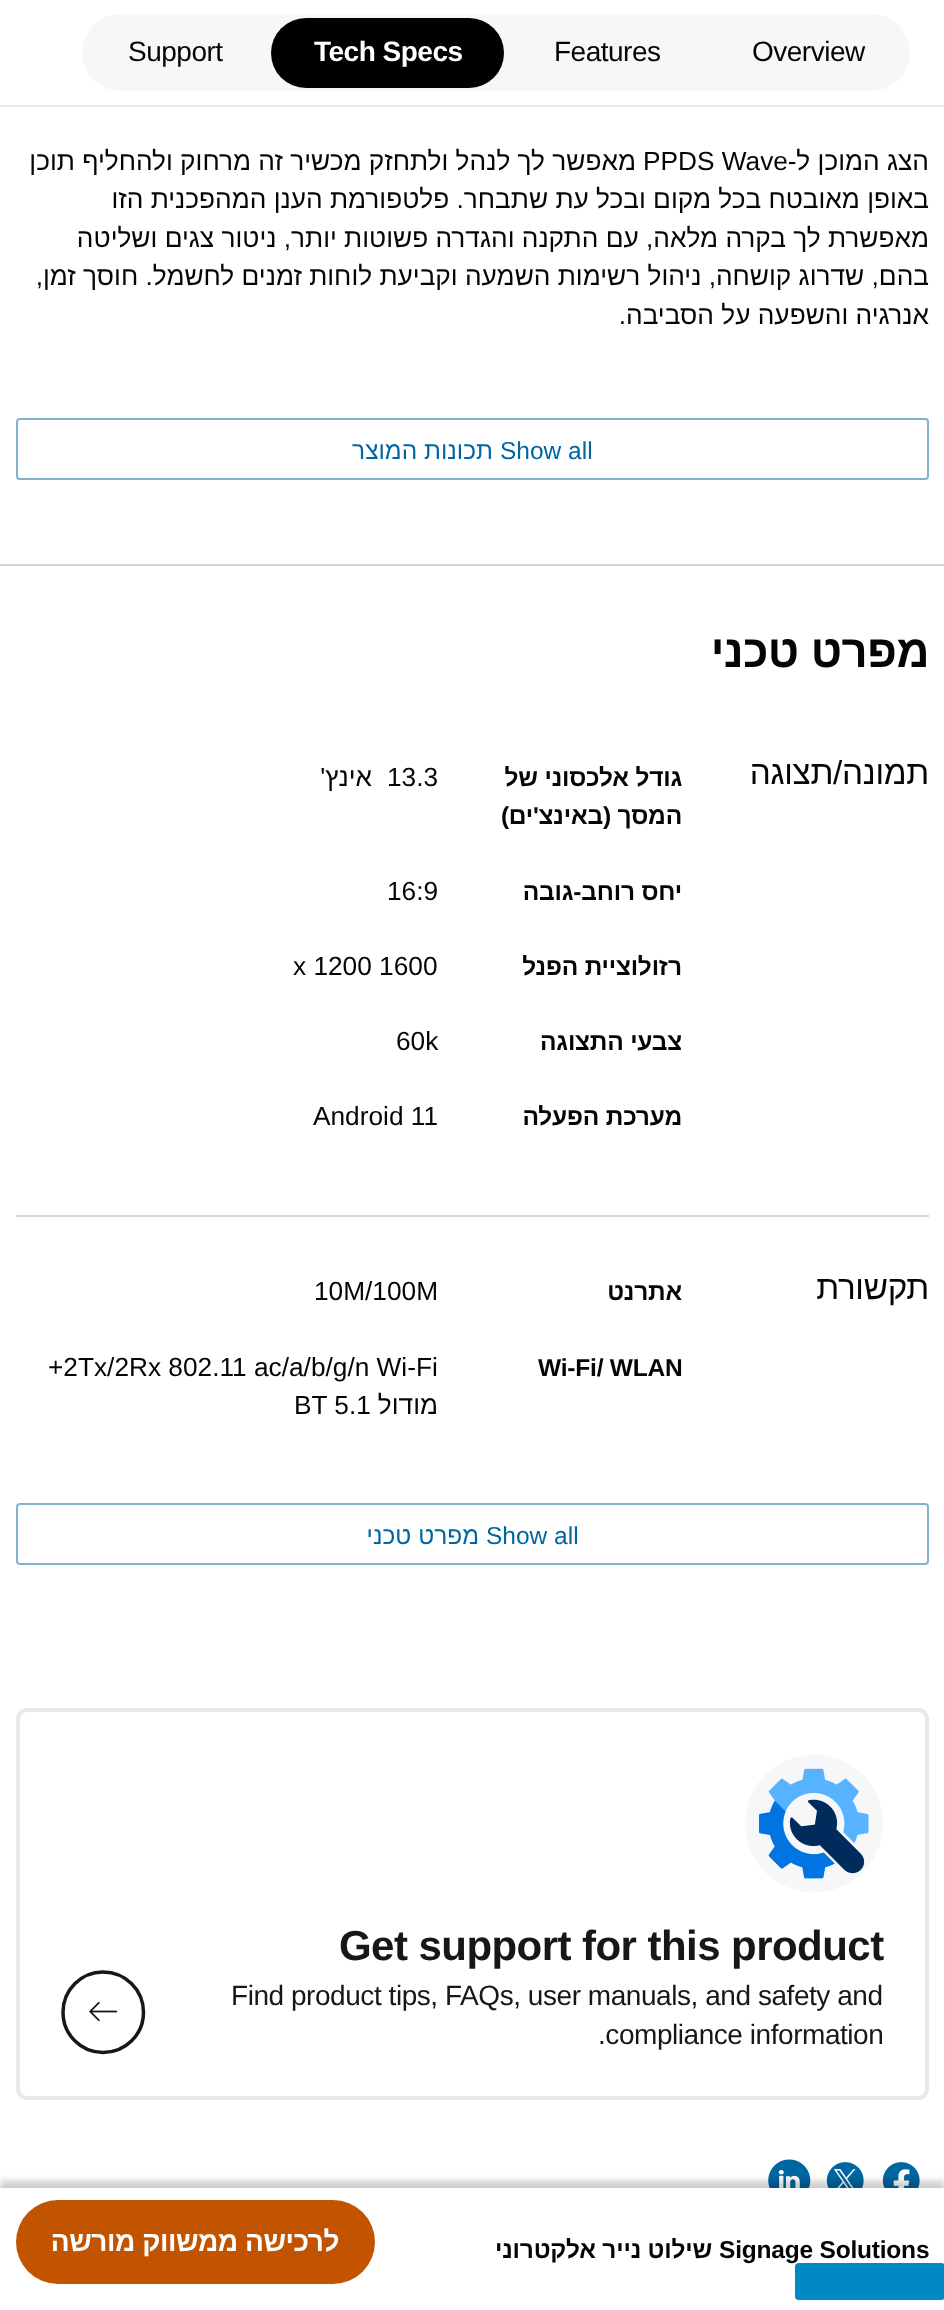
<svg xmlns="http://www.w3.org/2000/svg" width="944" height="2310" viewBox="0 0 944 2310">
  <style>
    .t1 { font: 28px Liberation Sans; letter-spacing: -0.5px; fill: #050505; }
    .t2 { font: bold 28px Liberation Sans; letter-spacing: -0.5px; fill: #fff; }
    .t3 { font: 26.25px Liberation Sans; direction: rtl; fill: #050505; }
    .t4 { font: 26.25px Liberation Sans; fill: #050505; }
    .t5 { font: 24.5px Liberation Sans; fill: #0066a1; }
    .t6 { font: 24.5px Liberation Sans; direction: rtl; fill: #0066a1; }
    .t7 { font: bold 45.5px Liberation Sans; letter-spacing: -0.5px; direction: rtl; fill: #050505; }
    .t8 { font: 33.25px Liberation Sans; letter-spacing: -0.3px; direction: rtl; fill: #050505; }
    .t9 { font: bold 24.5px Liberation Sans; letter-spacing: -0.2px; direction: rtl; fill: #050505; }
    .t10 { font: bold 24.5px Liberation Sans; letter-spacing: -0.2px; fill: #050505; }
    .t11 { font: bold 42px Liberation Sans; letter-spacing: -0.55px; fill: #171717; }
    .t12 { font: 28px Liberation Sans; letter-spacing: -0.45px; fill: #171717; }
    .t13 { font: bold 28px Liberation Sans; letter-spacing: -0.45px; direction: rtl; fill: #fff; }
  </style>
  <rect width="100%" height="100%" fill="#fff"/>
  <rect x="0" y="105" width="944" height="2" fill="#e6e8ea"/>
  <rect x="82" y="14" width="828" height="77" rx="38.5" fill="#f6f7f8"/>
  <text x="752" y="61" class="t1">Overview</text>
  <text x="554" y="61" class="t1">Features</text>
  <rect x="271" y="18" width="233" height="70" rx="35" fill="#000"/>
  <text x="314" y="61" class="t2">Tech Specs</text>
  <text x="128" y="61" class="t1">Support</text>
  <text x="929" y="170" class="t3">הצג המוכן ל-</text>
  <text x="643" y="170" class="t4">PPDS Wave</text>
  <text x="636" y="170" class="t3">מאפשר לך לנהל ולתחזק מכשיר זה מרחוק ולהחליף תוכן</text>
  <text x="929" y="208" class="t3">באופן מאובטח בכל מקום ובכל עת שתבחר. פלטפורמת הענן המהפכנית הזו</text>
  <text x="929" y="247" class="t3">מאפשרת לך בקרה מלאה, עם התקנה והגדרה פשוטות יותר, ניטור צגים ושליטה</text>
  <text x="929" y="285" class="t3">בהם, שדרוג קושחה, ניהול רשימות השמעה וקביעת לוחות זמנים לחשמל. חוסך זמן,</text>
  <text x="929" y="324" class="t3">אנרגיה והשפעה על הסביבה.</text>
  <rect x="17" y="419" width="911" height="60" rx="3" fill="none" stroke="#80b3d0" stroke-width="2"/>
  <text x="500" y="459" class="t5">Show all</text>
  <text x="493" y="459" class="t6">תכונות המוצר</text>
  <rect x="0" y="564" width="944" height="2" fill="#d6d6d6"/>
  <text x="929" y="667" class="t7">מפרט טכני</text>
  <text x="929" y="784" class="t8">תמונה/תצוגה</text>
  <text x="682" y="786" class="t9">גודל אלכסוני של</text>
  <text x="682" y="824" class="t9">המסך (באינצ'ים)</text>
  <text x="387" y="786" class="t4">13.3</text>
  <text x="372" y="786" class="t3">אינץ'</text>
  <text x="682" y="900" class="t9">יחס רוחב-גובה</text>
  <text x="387" y="900" class="t4">16:9</text>
  <text x="682" y="975" class="t9">רזולוציית הפנל</text>
  <text x="293" y="975" class="t4">x 1200 1600</text>
  <text x="682" y="1050" class="t9">צבעי התצוגה</text>
  <text x="396" y="1050" class="t4">60k</text>
  <text x="682" y="1125" class="t9">מערכת הפעלה</text>
  <text x="313" y="1125" class="t4">Android 11</text>
  <rect x="16" y="1215" width="913" height="2" fill="#d6d6d6"/>
  <text x="929" y="1299" class="t8">תקשורת</text>
  <text x="682" y="1300" class="t9">אתרנט</text>
  <text x="314" y="1300" class="t4">10M/100M</text>
  <text x="538" y="1376" class="t10">Wi-Fi/ WLAN</text>
  <text x="48" y="1376" class="t4">+2Tx/2Rx 802.11 ac/a/b/g/n Wi-Fi</text>
  <text x="438" y="1414" class="t3">מודול</text>
  <text x="294" y="1414" class="t4">BT 5.1</text>
  <rect x="17" y="1504" width="911" height="60" rx="3" fill="none" stroke="#80b3d0" stroke-width="2"/>
  <text x="486" y="1544" class="t5">Show all</text>
  <text x="479" y="1544" class="t6">מפרט טכני</text>
  <rect x="18" y="1710" width="909" height="388" rx="9" fill="none" stroke="#e8e8e8" stroke-width="4"/>
  <image x="745" y="1754" width="138" height="139" href="images/1.png"/>
  <text x="339" y="1960" class="t11">Get support for this product</text>
  <text x="231" y="2005" class="t12">Find product tips, FAQs, user manuals, and safety and</text>
  <text x="598" y="2044" class="t12">.compliance information</text>
  <path d="M103 2052.5C81 2052.5 63 2034.5 63 2012.5C63 1990 81 1972 103 1972C125.5 1972 143.5 1990 143.5 2012.5C143.5 2034.5 125.5 2052.5 103 2052.5Z" fill="none" stroke="#171717" stroke-width="3.5"/>
  <image x="89" y="2001" width="29" height="21" href="images/2.png"/>
  <image x="882" y="2162" width="38" height="26" href="images/3.png"/>
  <image x="826" y="2162" width="38" height="26" href="images/4.png"/>
  <image x="768" y="2159" width="43" height="29" href="images/5.png"/>
  <rect x="0" y="2181" width="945" height="122" fill="#00000033" filter="blur(3.5px)"/>
  <rect x="0" y="2188" width="944" height="121" fill="#fff"/>
  <text x="719" y="2258" class="t10">Signage Solutions</text>
  <text x="712" y="2258" class="t9">שילוט נייר אלקטרוני</text>
  <rect x="16" y="2200" width="359" height="84" rx="42" fill="#c25400"/>
  <text x="339" y="2251" class="t13">לרכישה ממשווק מורשה</text>
  <rect x="795" y="2263" width="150" height="37" rx="4" fill="#0089c4"/>
</svg>
